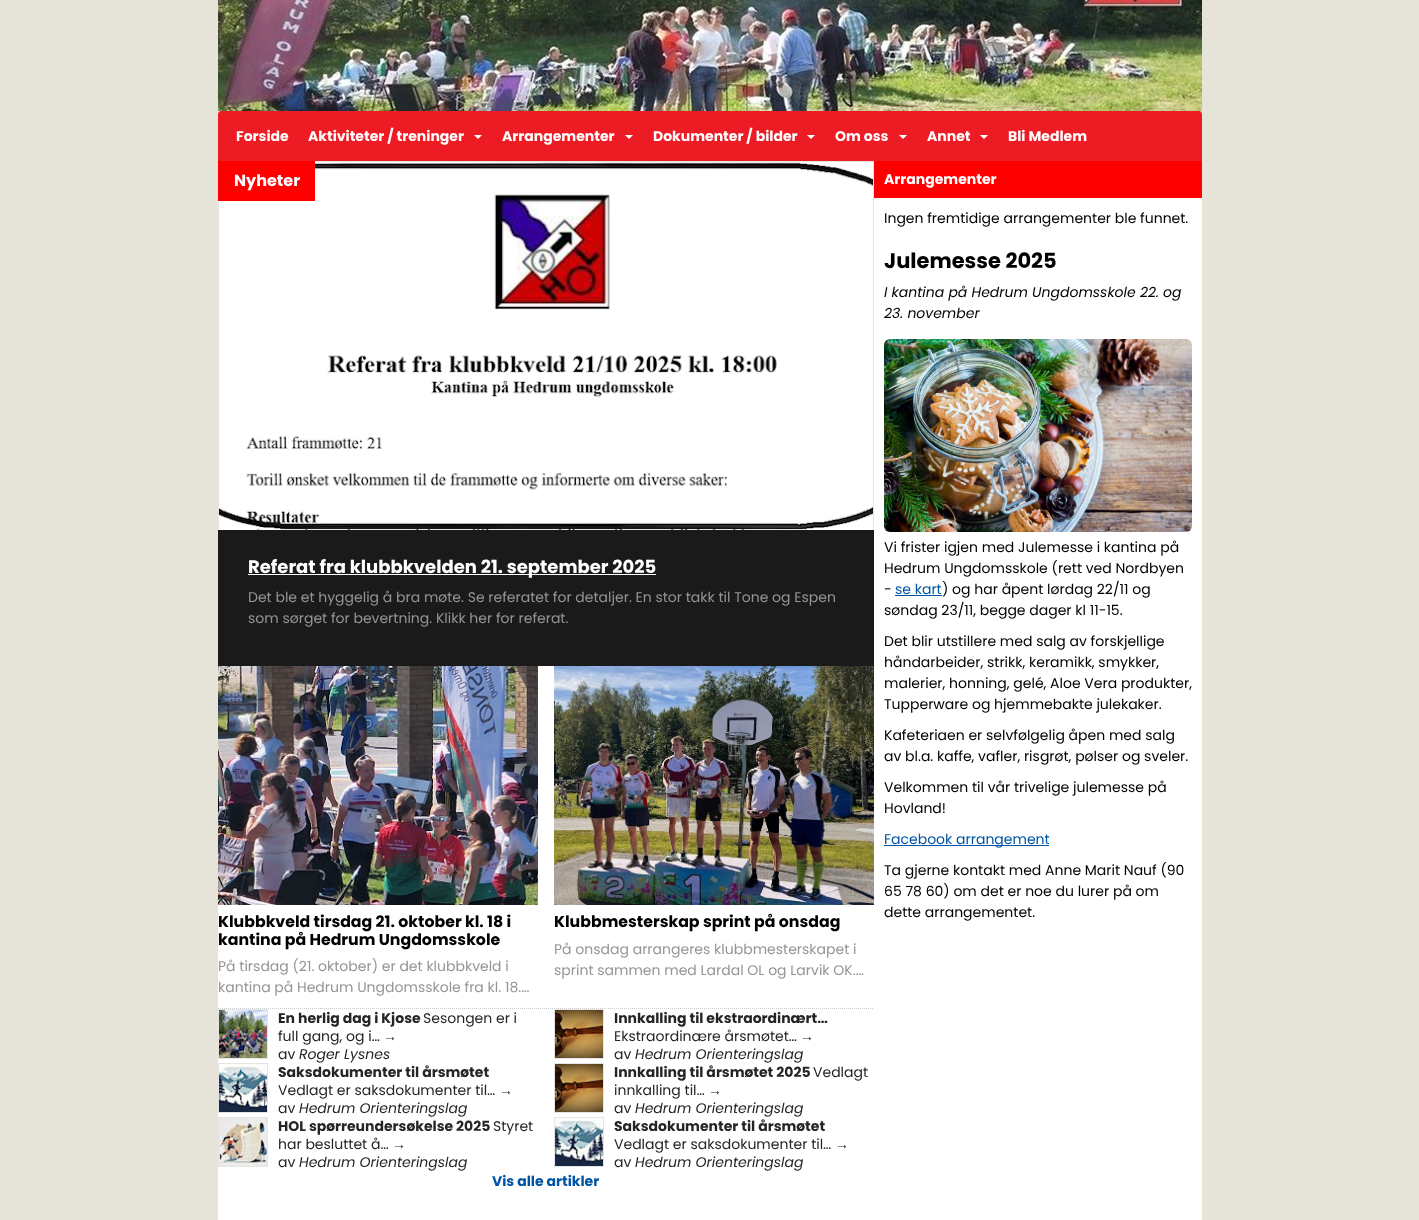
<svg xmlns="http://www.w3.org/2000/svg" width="1419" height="1220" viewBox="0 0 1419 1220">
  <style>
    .t1 { font: bold 14px Poppins; fill: #fff; }
    .t2 { font: bold 16px Poppins; fill: #fff; }
    .t3 { font: bold 18px Poppins; fill: #fff; }
    .t4 { font: 14px Poppins; fill: #959595; }
    .t5 { font: bold 15.75px Poppins; fill: #000; }
    .t6 { font: bold 14px Poppins; fill: #252525; }
    .t7 { font: 14px Poppins; fill: #252525; }
    .t8 { font: 14px Liberation Sans; fill: #252525; }
    .t9 { font: italic 14px Poppins; fill: #252525; }
    .t10 { font: bold 14px Poppins; fill: #0054a6; }
    .t11 { font: 14px Poppins; fill: #000; }
    .t12 { font: bold 21px Poppins; fill: #000; }
    .t13 { font: italic 14px Poppins; fill: #000; }
    .t14 { font: 14px Poppins; fill: #0054a6; }
  </style>
  <rect width="100%" height="100%" fill="#e6e4d9"/>
  <image x="218" y="0" width="984" height="111" href="images/1.png"/>
  <path d="M221 111H1199C1200.5 111 1202 112.5 1202 114V161H218V114C218 112.5 219.5 111 221 111Z" fill="#ed1c24"/>
  <text x="236" y="141" class="t1">Forside</text>
  <text x="308" y="141" class="t1">Aktiviteter / treninger</text>
  <path d="M474 135H482L478 139Z" fill="#fff"/>
  <text x="502" y="141" class="t1">Arrangementer</text>
  <path d="M625 135H633L629 139Z" fill="#fff"/>
  <text x="653" y="141" class="t1">Dokumenter / bilder</text>
  <path d="M807 135H815L811 139Z" fill="#fff"/>
  <text x="835" y="141" class="t1">Om oss</text>
  <path d="M899 135H907L903 139Z" fill="#fff"/>
  <text x="927" y="141" class="t1">Annet</text>
  <path d="M980 135H988L984 139Z" fill="#fff"/>
  <text x="1008" y="141" class="t1">Bli Medlem</text>
  <rect x="315" y="161" width="559" height="1" fill="#e5e5e5"/>
  <rect x="218" y="198" width="984" height="1022" fill="#fff"/>
  <rect x="218" y="201" width="1" height="329" fill="#e5e5e5"/>
  <image x="219" y="162" width="654" height="368" href="images/2.png"/>
  <rect x="873" y="161" width="1" height="369" fill="#e5e5e5"/>
  <rect x="218" y="161" width="97" height="40" fill="#f00"/>
  <text x="234" y="186" class="t2">Nyheter</text>
  <rect x="218" y="530" width="656" height="136" fill="#1a1a1a"/>
  <rect x="248" y="574" width="408" height="1" fill="#fff"/>
  <text x="248" y="573" class="t3">Referat fra klubbkvelden 21. september 2025</text>
  <text x="248" y="602" class="t4">Det ble et hyggelig å bra møte. Se referatet for detaljer. En stor takk til Tone og Espen</text>
  <text x="248" y="623" class="t4">som sørget for bevertning. Klikk her for referat.</text>
  <path d="M218 1008.5H874" fill="none" stroke="#ccc" stroke-dasharray="1 1"/>
  <image x="218" y="666" width="320" height="239" href="images/3.png"/>
  <text x="218" y="927" class="t5">Klubbkveld tirsdag 21. oktober kl. 18 i</text>
  <text x="218" y="945" class="t5">kantina på Hedrum Ungdomsskole</text>
  <text x="218" y="971" class="t4">På tirsdag (21. oktober) er det klubbkveld i</text>
  <text x="218" y="992" class="t4">kantina på Hedrum Ungdomsskole fra kl. 18.…</text>
  <image x="554" y="666" width="320" height="239" href="images/4.png"/>
  <text x="554" y="927" class="t5">Klubbmesterskap sprint på onsdag</text>
  <text x="554" y="954" class="t4">På onsdag arrangeres klubbmesterskapet i</text>
  <text x="554" y="975" class="t4">sprint sammen med Lardal OL og Larvik OK.…</text>
  <rect x="218.5" y="1009.5" width="49" height="49" fill="none" stroke="#e5e5e5"/>
  <image x="219" y="1010" width="48" height="48" href="images/5.png"/>
  <text x="278" y="1023" class="t6">En herlig dag i Kjose</text>
  <text x="423" y="1023" class="t7">Sesongen er i</text>
  <text x="278" y="1041" class="t7">full gang, og i…</text>
  <text x="383" y="1041" class="t8">→</text>
  <text x="278" y="1059" class="t7">av</text>
  <text x="299" y="1059" class="t9">Roger Lysnes</text>
  <rect x="554.5" y="1009.5" width="49" height="49" fill="none" stroke="#e5e5e5"/>
  <image x="555" y="1010" width="48" height="48" href="images/6.png"/>
  <text x="614" y="1023" class="t6">Innkalling til ekstraordinært…</text>
  <text x="614" y="1041" class="t7">Ekstraordinære årsmøtet…</text>
  <text x="800" y="1041" class="t8">→</text>
  <text x="614" y="1059" class="t7">av</text>
  <text x="635" y="1059" class="t9">Hedrum Orienteringslag</text>
  <rect x="218.5" y="1063.5" width="49" height="49" fill="none" stroke="#e5e5e5"/>
  <image x="219" y="1064" width="48" height="48" href="images/7.png"/>
  <text x="278" y="1077" class="t6">Saksdokumenter til årsmøtet</text>
  <text x="278" y="1095" class="t7">Vedlagt er saksdokumenter til…</text>
  <text x="499" y="1095" class="t8">→</text>
  <text x="278" y="1113" class="t7">av</text>
  <text x="299" y="1113" class="t9">Hedrum Orienteringslag</text>
  <rect x="554.5" y="1063.5" width="49" height="49" fill="none" stroke="#e5e5e5"/>
  <image x="555" y="1064" width="48" height="48" href="images/8.png"/>
  <text x="614" y="1077" class="t6">Innkalling til årsmøtet 2025</text>
  <text x="813" y="1077" class="t7">Vedlagt</text>
  <text x="614" y="1095" class="t7">innkalling til…</text>
  <text x="708" y="1095" class="t8">→</text>
  <text x="614" y="1113" class="t7">av</text>
  <text x="635" y="1113" class="t9">Hedrum Orienteringslag</text>
  <rect x="218.5" y="1117.5" width="49" height="49" fill="none" stroke="#e5e5e5"/>
  <image x="219" y="1118" width="48" height="48" href="images/9.png"/>
  <text x="278" y="1131" class="t6">HOL spørreundersøkelse 2025</text>
  <text x="493" y="1131" class="t7">Styret</text>
  <text x="278" y="1149" class="t7">har besluttet å…</text>
  <text x="392" y="1149" class="t8">→</text>
  <text x="278" y="1167" class="t7">av</text>
  <text x="299" y="1167" class="t9">Hedrum Orienteringslag</text>
  <rect x="554.5" y="1117.5" width="49" height="49" fill="none" stroke="#e5e5e5"/>
  <image x="555" y="1118" width="48" height="48" href="images/10.png"/>
  <text x="614" y="1131" class="t6">Saksdokumenter til årsmøtet</text>
  <text x="614" y="1149" class="t7">Vedlagt er saksdokumenter til…</text>
  <text x="835" y="1149" class="t8">→</text>
  <text x="614" y="1167" class="t7">av</text>
  <text x="635" y="1167" class="t9">Hedrum Orienteringslag</text>
  <text x="492" y="1186" class="t10">Vis alle artikler</text>
  <rect x="874" y="161" width="328" height="37" fill="#f00"/>
  <text x="884" y="184" class="t1">Arrangementer</text>
  <text x="884" y="223" class="t11">Ingen fremtidige arrangementer ble funnet.</text>
  <text x="884" y="268" class="t12">Julemesse 2025</text>
  <text x="884" y="297" class="t13">I kantina på Hedrum Ungdomsskole 22. og</text>
  <text x="884" y="318" class="t13">23. november</text>
  <image x="884" y="339" width="308" height="193" href="images/11.png"/>
  <text x="884" y="552" class="t11">Vi frister igjen med Julemesse i kantina på</text>
  <text x="884" y="573" class="t11">Hedrum Ungdomsskole (rett ved Nordbyen</text>
  <text x="884" y="594" class="t11">-</text>
  <text x="895" y="594" class="t14">se kart</text>
  <rect x="895" y="595" width="47" height="1" fill="#0054a6"/>
  <text x="942" y="594" class="t11">) og har åpent lørdag 22/11 og</text>
  <text x="884" y="615" class="t11">søndag 23/11, begge dager kl 11-15.</text>
  <text x="884" y="646" class="t11">Det blir utstillere med salg av forskjellige</text>
  <text x="884" y="667" class="t11">håndarbeider, strikk, keramikk, smykker,</text>
  <text x="884" y="688" class="t11">malerier, honning, gelé, Aloe Vera produkter,</text>
  <text x="884" y="709" class="t11">Tupperware og hjemmebakte julekaker.</text>
  <text x="884" y="740" class="t11">Kafeteriaen er selvfølgelig åpen med salg</text>
  <text x="884" y="761" class="t11">av bl.a. kaffe, vafler, risgrøt, pølser og sveler.</text>
  <text x="884" y="792" class="t11">Velkommen til vår trivelige julemesse på</text>
  <text x="884" y="813" class="t11">Hovland!</text>
  <rect x="884" y="845" width="165" height="1" fill="#0054a6"/>
  <text x="884" y="844" class="t14">Facebook arrangement</text>
  <text x="884" y="875" class="t11">Ta gjerne kontakt med Anne Marit Nauf (90</text>
  <text x="884" y="896" class="t11">65 78 60) om det er noe du lurer på om</text>
  <text x="884" y="917" class="t11">dette arrangementet.</text>
</svg>
